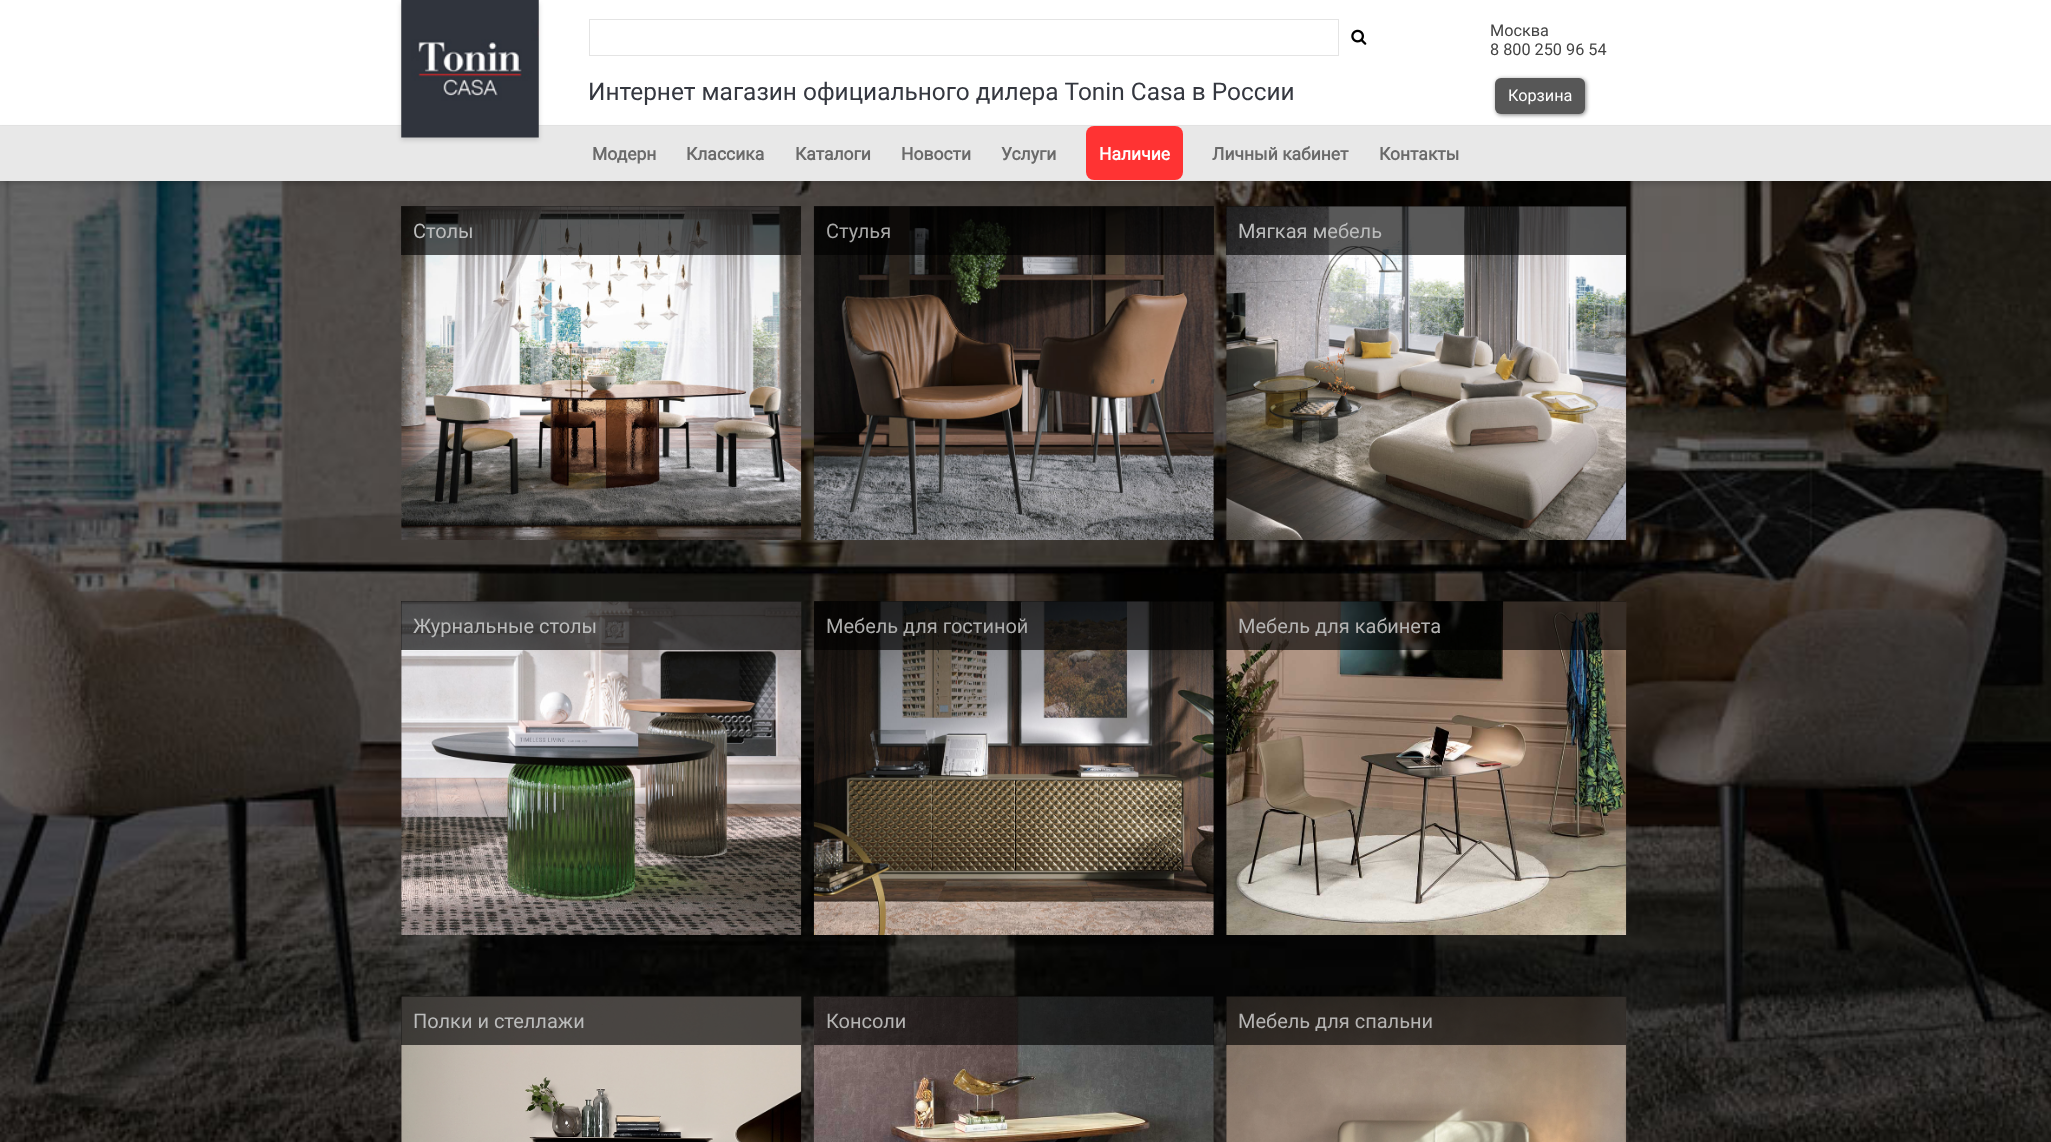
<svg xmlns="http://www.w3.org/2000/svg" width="2051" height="1142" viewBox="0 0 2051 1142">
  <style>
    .t1 { font: 16.25px Roboto; fill: #434343; }
    .t2 { font: 16.25px Roboto; fill: #fff; }
    .t3 { font: 24.4px Roboto; fill: #34373f; }
    .t4 { font: bold 17.5px Roboto; fill: #6a6a6a; }
    .t5 { font: bold 17.5px Roboto; fill: #fff; }
    .t6 { font: 20px Roboto; fill: #bbbcbc; }
    .t7 { font: 20px Roboto; fill: #a8a8a7; }
    .t8 { font: 20px Roboto; fill: #aeaead; }
    .t9 { font: 20px Roboto; fill: #b5b4b3; }
  </style>
  <rect width="100%" height="100%" fill="#fff"/>
  <image x="0" y="181" width="2051" height="961" href="images/1.png"/>
  <rect x="0" y="125" width="2051" height="1" fill="#e5e5e5"/>
  <rect x="0" y="129" width="2051" height="55" fill="#00000026" filter="blur(2.5px)"/>
  <rect x="0" y="126" width="2051" height="55" fill="#e8e8e8"/>
  <rect x="401" y="3" width="138" height="137" fill="#00000026" filter="blur(2.5px)"/>
  <image x="401" y="0" width="138" height="138" href="images/2.png"/>
  <rect x="589.5" y="19.5" width="749" height="36" fill="none" stroke="#e4e4e4"/>
  <image x="1351" y="29" width="16" height="16" href="images/3.png"/>
  <text x="1490" y="36" class="t1">Москва</text>
  <text x="1490" y="55" class="t1">8 800 250 96 54</text>
  <rect x="1496" y="79" width="90" height="36" rx="6" fill="#00000080" filter="blur(2px)"/>
  <rect x="1495" y="78" width="90" height="36" rx="6" fill="#575757"/>
  <text x="1508" y="101" class="t2">Корзина</text>
  <text x="588" y="100" class="t3">Интернет магазин официального дилера Tonin Casa в России</text>
  <text x="592" y="160" class="t4">Модерн</text>
  <text x="686" y="160" class="t4">Классика</text>
  <text x="795" y="160" class="t4">Каталоги</text>
  <text x="901" y="160" class="t4">Новости</text>
  <text x="1001" y="160" class="t4">Услуги</text>
  <rect x="1086" y="126" width="97" height="54" rx="8" fill="#f33"/>
  <text x="1099" y="160" class="t5">Наличие</text>
  <text x="1212" y="160" class="t4">Личный кабинет</text>
  <text x="1379" y="160" class="t4">Контакты</text>
  <image x="401" y="206" width="401" height="334" href="images/4.png"/>
  <rect x="401" y="206" width="400" height="49" fill="#000000a6"/>
  <text x="413" y="238" class="t6">Столы</text>
  <image x="813" y="206" width="401" height="334" href="images/5.png"/>
  <rect x="814" y="206" width="400" height="49" fill="#000000a6"/>
  <text x="826" y="238" class="t7">Стулья</text>
  <image x="1226" y="206" width="401" height="334" href="images/6.png"/>
  <rect x="1226" y="206" width="400" height="49" fill="#000000a6"/>
  <text x="1238" y="238" class="t6">Мягкая мебель</text>
  <image x="401" y="601" width="401" height="334" href="images/7.png"/>
  <rect x="401" y="601" width="400" height="49" fill="#000000a6"/>
  <text x="413" y="633" class="t6">Журнальные столы</text>
  <image x="813" y="601" width="401" height="334" href="images/8.png"/>
  <rect x="814" y="601" width="400" height="49" fill="#000000a6"/>
  <text x="826" y="633" class="t8">Мебель для гостиной</text>
  <image x="1226" y="601" width="401" height="334" href="images/9.png"/>
  <rect x="1226" y="601" width="400" height="49" fill="#000000a6"/>
  <text x="1238" y="633" class="t9">Мебель для кабинета</text>
  <image x="401" y="996" width="401" height="146" href="images/10.png"/>
  <rect x="401" y="996" width="400" height="49" fill="#000000a6"/>
  <text x="413" y="1028" class="t6">Полки и стеллажи</text>
  <image x="813" y="996" width="401" height="146" href="images/11.png"/>
  <rect x="814" y="996" width="400" height="49" fill="#000000a6"/>
  <text x="826" y="1028" class="t9">Консоли</text>
  <image x="1226" y="996" width="401" height="146" href="images/12.png"/>
  <rect x="1226" y="996" width="400" height="49" fill="#000000a6"/>
  <text x="1238" y="1028" class="t9">Мебель для спальни</text>
</svg>
